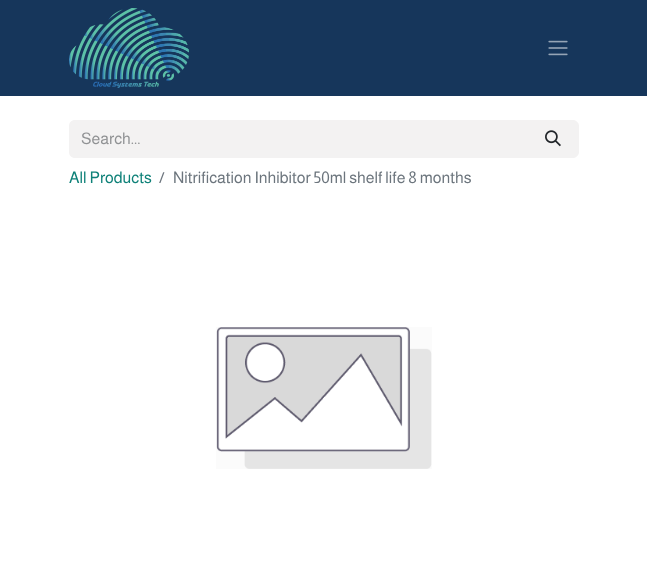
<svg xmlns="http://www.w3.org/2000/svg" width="647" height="574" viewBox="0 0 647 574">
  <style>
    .t1 { font: 16px Almarai; fill: #909294; }
    .t2 { font: 16px Almarai; fill: #0e8178; }
    .t3 { font: 16px Almarai; fill: #6c757d; }
  </style>
  <rect width="100%" height="100%" fill="#fff"/>
  <rect x="0" y="0" width="647" height="96" fill="#16365b"/>
  <image x="69" y="8" width="120" height="80" href="images/1.png"/>
  <image x="548" y="40" width="20" height="16" href="images/2.png"/>
  <path d="M75 120H529V158H75C71.5 158 69 155.5 69 152V126C69 122.5 71.5 120 75 120Z" fill="#f3f2f2"/>
  <text x="81" y="144" class="t1">Search...</text>
  <path d="M528.5 120.5H573C576 120.5 578.5 123 578.5 126V152C578.5 155 576 157.5 573 157.5H528.5Z" fill="#f3f2f2" stroke="#f3f2f2"/>
  <image x="545" y="130" width="16" height="17" href="images/3.png"/>
  <text x="69" y="183" class="t2">All Products</text>
  <text x="159" y="183" class="t3">/</text>
  <text x="173" y="183" class="t3">Nitrification Inhibitor 50ml shelf life 8 months</text>
  <image x="216" y="327" width="216" height="142" href="images/4.png"/>
</svg>
